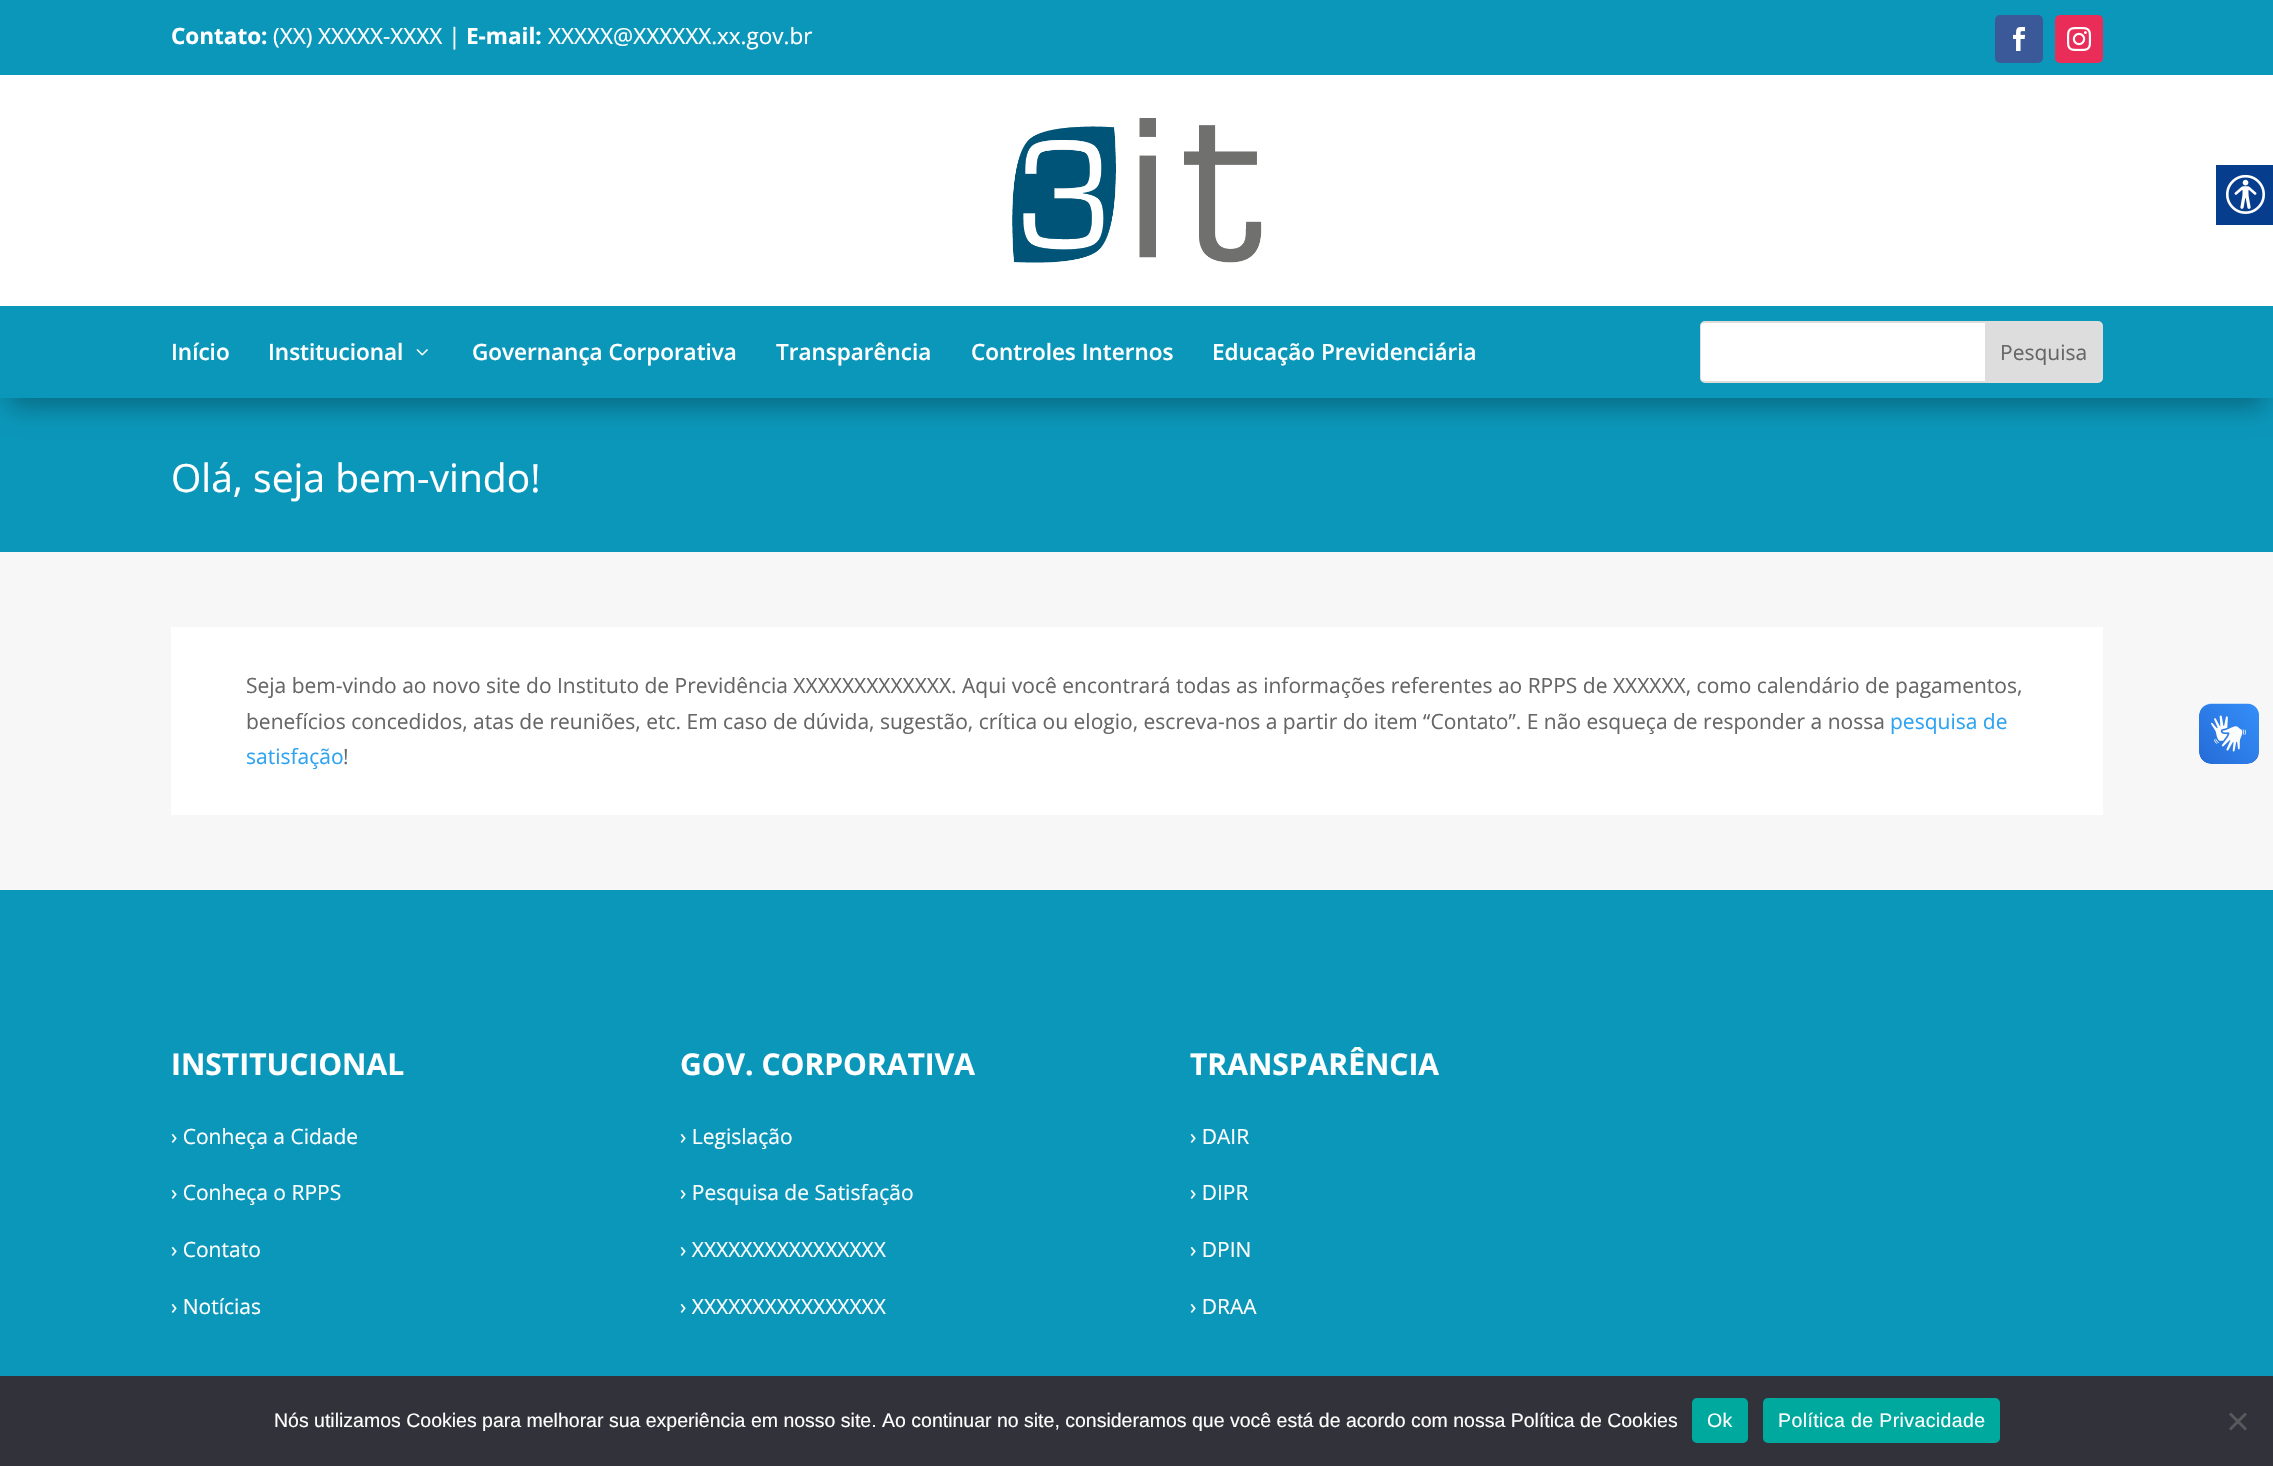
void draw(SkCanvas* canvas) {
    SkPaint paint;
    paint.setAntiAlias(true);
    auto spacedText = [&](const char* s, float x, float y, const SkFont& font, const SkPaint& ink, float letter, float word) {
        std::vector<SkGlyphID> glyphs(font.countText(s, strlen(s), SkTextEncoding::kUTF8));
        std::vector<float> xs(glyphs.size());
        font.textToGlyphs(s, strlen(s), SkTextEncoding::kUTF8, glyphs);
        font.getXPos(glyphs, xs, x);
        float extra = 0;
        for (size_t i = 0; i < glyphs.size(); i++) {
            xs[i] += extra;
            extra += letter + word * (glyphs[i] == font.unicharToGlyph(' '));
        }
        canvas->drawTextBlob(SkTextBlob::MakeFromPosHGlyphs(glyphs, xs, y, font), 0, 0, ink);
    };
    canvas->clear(0xFFFFFFFF);
    paint.setColor(0xFF0B97BA);
    canvas->drawRect(SkRect::MakeXYWH(0, 0, 2273, 75), paint);
    SkFont font1(fontMgr->matchFamilyStyle("Open Sans", SkFontStyle::Bold()), 22.5f);
    font1.setSubpixel(true);
    paint.setColor(0xFFFFFFFF);
    canvas->drawString("Contato:", 171, 44, font1, paint);
    SkFont font2(fontMgr->matchFamilyStyle("Open Sans", SkFontStyle::Normal()), 22.5f);
    font2.setSubpixel(true);
    canvas->drawString("(XX) XXXXX-XXXX |", 273, 44, font2, paint);
    canvas->drawString("E-mail:", 466, 44, font1, paint);
    canvas->drawString("XXXXX@XXXXXX.xx.gov.br", 548, 44, font2, paint);
    paint.setColor(0xFF3B5998);
    canvas->drawRoundRect(SkRect::MakeXYWH(1995, 15, 48, 48), 5, 5, paint);
    canvas->drawImageRect(SkImages::DeferredFromEncodedData(SkData::MakeFromFileName("img1.png")), SkRect::MakeXYWH(2013, 27, 13, 24), SkSamplingOptions());
    paint.setColor(0xFFEA2C59);
    canvas->drawRoundRect(SkRect::MakeXYWH(2055, 15, 48, 48), 5, 5, paint);
    canvas->drawImageRect(SkImages::DeferredFromEncodedData(SkData::MakeFromFileName("img2.png")), SkRect::MakeXYWH(2067, 27, 24, 24), SkSamplingOptions());
    canvas->drawImageRect(SkImages::DeferredFromEncodedData(SkData::MakeFromFileName("img3.png")), SkRect::MakeXYWH(1012, 118, 250, 145), SkSamplingOptions());
    paint.setColor(0xFF0B97BA);
    canvas->drawRect(SkRect::MakeXYWH(0, 398, 2273, 154), paint);
    paint.setColor(0x4D000000);
    paint.setMaskFilter(SkMaskFilter::MakeBlur(kNormal_SkBlurStyle, 13.5f));
    canvas->drawRect(SkRect::MakeXYWH(9, 333, 2256, 74), paint);
    paint.setMaskFilter(nullptr);
    paint.setColor(0xFF0B97BA);
    canvas->drawRect(SkRect::MakeXYWH(0, 306, 2273, 92), paint);
    SkFont font3(fontMgr->matchFamilyStyle("Open Sans", SkFontStyle(600, SkFontStyle::kNormal_Width, SkFontStyle::kUpright_Slant)), 22.5f);
    font3.setSubpixel(true);
    paint.setColor(0xFFFFFFFF);
    canvas->drawString("Início", 171, 360, font3, paint);
    canvas->drawString("Institucional", 268, 360, font3, paint);
    canvas->drawImageRect(SkImages::DeferredFromEncodedData(SkData::MakeFromFileName("img4.png")), SkRect::MakeXYWH(416, 349, 12, 7), SkSamplingOptions());
    canvas->drawString("Governança Corporativa", 472, 360, font3, paint);
    canvas->drawString("Transparência", 776, 360, font3, paint);
    canvas->drawString("Controles Internos", 971, 360, font3, paint);
    canvas->drawString("Educação Previdenciária", 1212, 360, font3, paint);
    paint.setStyle(SkPaint::kStroke_Style);
    paint.setStrokeWidth(2);
    paint.setColor(0xFFDDDDDD);
    canvas->drawRoundRect(SkRect::MakeXYWH(1701, 322, 401, 60), 4, 4, paint);
    paint.setStyle(SkPaint::kFill_Style);
    paint.setColor(0xFFFFFFFF);
    canvas->drawRoundRect(SkRect::MakeXYWH(1701, 323, 401, 58), 3, 3, paint);
    paint.setColor(0xFFDDDDDD);
    canvas->drawPath(SkPathBuilder().moveTo(1985, 323).lineTo(2099, 323).cubicTo(2100.5f, 323, 2102, 324.5f, 2102, 326).lineTo(2102, 378).cubicTo(2102, 379.5f, 2100.5f, 381, 2099, 381).lineTo(1985, 381).close().detach(), paint);
    SkFont font4(fontMgr->matchFamilyStyle("Open Sans", SkFontStyle::Normal()), 21);
    font4.setSubpixel(true);
    paint.setColor(0xFF666666);
    canvas->drawString("Pesquisa", 2000, 360, font4, paint);
    SkFont font5(fontMgr->matchFamilyStyle("Open Sans", SkFontStyle::Normal()), 39);
    font5.setSubpixel(true);
    paint.setColor(0xFFFFFFFF);
    canvas->drawString("Olá, seja bem-vindo!", 171, 492, font5, paint);
    paint.setColor(0xFFF7F7F7);
    canvas->drawRect(SkRect::MakeXYWH(0, 552, 2273, 338), paint);
    paint.setColor(0xFFFFFFFF);
    canvas->drawRect(SkRect::MakeXYWH(171, 627, 1932, 188), paint);
    paint.setColor(0xFF666666);
    canvas->drawString("Seja bem-vindo ao novo site do Instituto de Previdência XXXXXXXXXXXXX. Aqui você encontrará todas as informações referentes ao RPPS de XXXXXX, como calendário de pagamentos,", 246, 693, font4, paint);
    canvas->drawString("benefícios concedidos, atas de reuniões, etc. Em caso de dúvida, sugestão, crítica ou elogio, escreva-nos a partir do item “Contato”. E não esqueça de responder a nossa", 246, 729, font4, paint);
    paint.setColor(0xFF2EA3F2);
    canvas->drawString("pesquisa de", 1890, 729, font4, paint);
    canvas->drawString("satisfação", 246, 764, font4, paint);
    paint.setColor(0xFF666666);
    canvas->drawString("!", 343, 764, font4, paint);
    paint.setColor(0xFF0B97BA);
    canvas->drawRect(SkRect::MakeXYWH(0, 890, 2273, 486), paint);
    SkFont font6(fontMgr->matchFamilyStyle("Open Sans", SkFontStyle::Bold()), 30);
    font6.setSubpixel(true);
    paint.setColor(0xFFFFFFFF);
    canvas->drawString("INSTITUCIONAL", 171, 1075, font6, paint);
    canvas->drawString("› Conheça a Cidade", 171, 1144, font4, paint);
    canvas->drawString("› Conheça o RPPS", 171, 1200, font4, paint);
    canvas->drawString("› Contato", 171, 1257, font4, paint);
    canvas->drawString("› Notícias", 171, 1314, font4, paint);
    canvas->drawString("GOV. CORPORATIVA", 680, 1075, font6, paint);
    canvas->drawString("› Legislação", 680, 1144, font4, paint);
    canvas->drawString("› Pesquisa de Satisfação", 680, 1200, font4, paint);
    canvas->drawString("› XXXXXXXXXXXXXXXX", 680, 1257, font4, paint);
    canvas->drawString("› XXXXXXXXXXXXXXXX", 680, 1314, font4, paint);
    canvas->drawString("TRANSPARÊNCIA", 1190, 1075, font6, paint);
    canvas->drawString("› DAIR", 1190, 1144, font4, paint);
    canvas->drawString("› DIPR", 1190, 1200, font4, paint);
    canvas->drawString("› DPIN", 1190, 1257, font4, paint);
    canvas->drawString("› DRAA", 1190, 1314, font4, paint);
    paint.setColor(0xFF063D8D);
    canvas->drawRect(SkRect::MakeXYWH(2216, 165, 57, 60), paint);
    canvas->drawImageRect(SkImages::DeferredFromEncodedData(SkData::MakeFromFileName("img5.png")), SkRect::MakeXYWH(2226, 174, 39, 40), SkSamplingOptions());
    canvas->drawImageRect(SkImages::DeferredFromEncodedData(SkData::MakeFromFileName("img6.png")), SkRect::MakeXYWH(2199, 703, 60, 61), SkSamplingOptions());
    canvas->drawImageRect(SkImages::DeferredFromEncodedData(SkData::MakeFromFileName("img7.png")), SkRect::MakeXYWH(2199, 704, 60, 60), SkSamplingOptions());
    paint.setColor(0xFF32323A);
    canvas->drawRect(SkRect::MakeXYWH(0, 1376, 2273, 90), paint);
    SkFont font7(fontMgr->matchFamilyStyle("Liberation Sans", SkFontStyle::Normal()), 19.5f);
    font7.setSubpixel(true);
    paint.setColor(0xFFFFFFFF);
    canvas->drawString("Nós utilizamos Cookies para melhorar sua experiência em nosso site. Ao continuar no site, consideramos que você está de acordo com nossa Política de Cookies", 274, 1427, font7, paint);
    paint.setColor(0xFF00A99D);
    canvas->drawRoundRect(SkRect::MakeXYWH(1692, 1398, 56, 45), 5, 5, paint);
    paint.setColor(0xFFFFFFFF);
    spacedText("Ok", 1707, 1427, font7, paint, 0.4f, 0);
    paint.setColor(0xFF00A99D);
    canvas->drawRoundRect(SkRect::MakeXYWH(1763, 1398, 237, 45), 5, 5, paint);
    paint.setColor(0xFFFFFFFF);
    spacedText("Política de Privacidade", 1778, 1427, font7, paint, 0.4f, 0);
    paint.setColor(0xFF59595D);
    canvas->drawPath(SkPathBuilder().moveTo(2245, 1412.5f).lineTo(2247, 1414.5f).lineTo(2231, 1430.5f).lineTo(2229, 1428.5f).close().detach(), paint);
    canvas->drawPath(SkPathBuilder().moveTo(2229, 1414.5f).lineTo(2231, 1412.5f).lineTo(2247, 1428.5f).lineTo(2245, 1430.5f).close().detach(), paint);
}
